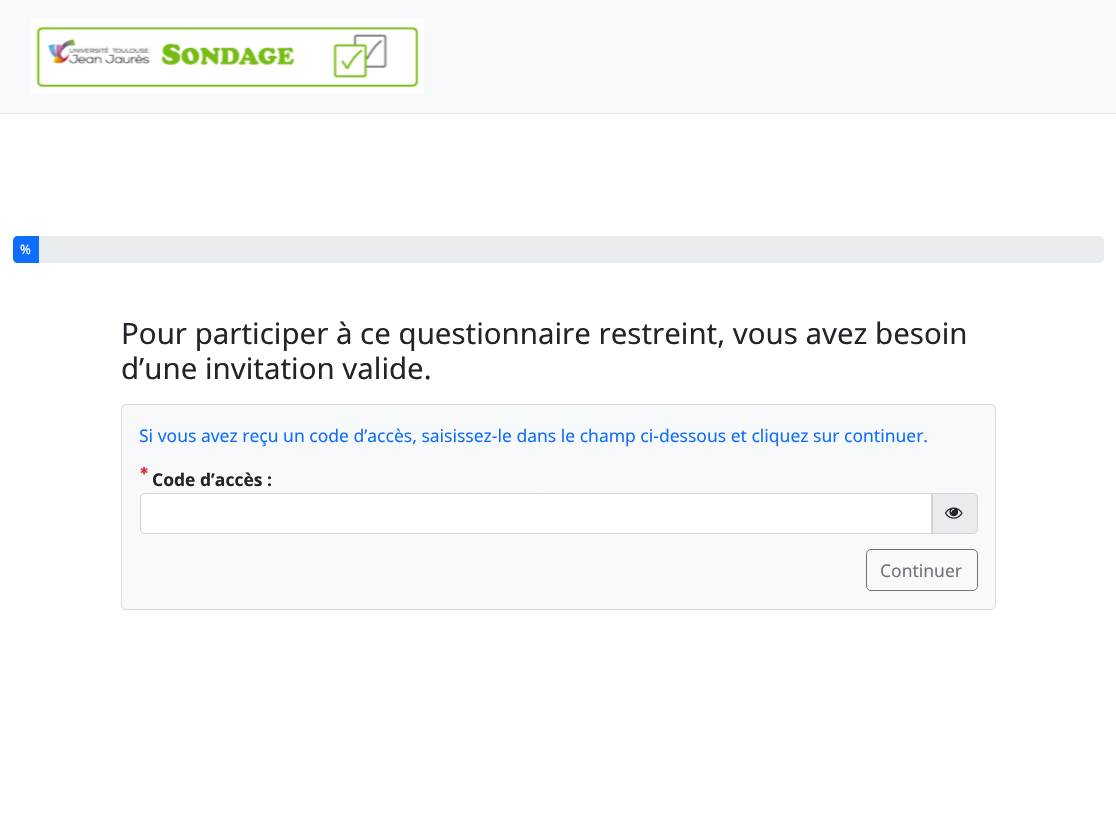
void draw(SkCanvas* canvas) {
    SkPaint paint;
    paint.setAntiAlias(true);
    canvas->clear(0xFFFFFFFF);
    paint.setColor(0xFFF8F9FA);
    canvas->drawRect(SkRect::MakeXYWH(0, 0, 1116, 113), paint);
    paint.setColor(0xFFDEE2E6);
    canvas->drawRect(SkRect::MakeXYWH(0, 113, 1116, 1), paint);
    canvas->drawImageRect(SkImages::DeferredFromEncodedData(SkData::MakeFromFileName("img1.png")), SkRect::MakeXYWH(31, 19, 393, 75), SkSamplingOptions());
    paint.setColor(0xFFE9ECEF);
    canvas->drawRoundRect(SkRect::MakeXYWH(13, 236, 1091, 27), 5, 5, paint);
    paint.setColor(0xFF0D6EFD);
    canvas->drawPath(SkPathBuilder().moveTo(18, 236).lineTo(39, 236).lineTo(39, 263).lineTo(18, 263).cubicTo(15, 263, 13, 261, 13, 258).lineTo(13, 241).cubicTo(13, 238, 15, 236, 18, 236).close().detach(), paint);
    SkFont font1(fontMgr->matchFamilyStyle("Noto Sans", SkFontStyle::Normal()), 13);
    font1.setSubpixel(true);
    paint.setColor(0xFFFFFFFF);
    canvas->drawString("%", 20, 254, font1, paint);
    SkFont font2(fontMgr->matchFamilyStyle("Noto Sans", SkFontStyle::Normal()), 29.45f);
    font2.setSubpixel(true);
    paint.setColor(0xFF212529);
    canvas->drawString("Pour participer à ce questionnaire restreint, vous avez besoin", 121, 344, font2, paint);
    canvas->drawString("d’une invitation valide.", 121, 379, font2, paint);
    paint.setColor(0xFFF8F9FA);
    canvas->drawRoundRect(SkRect::MakeXYWH(121, 404, 875, 206), 5, 5, paint);
    paint.setStyle(SkPaint::kStroke_Style);
    paint.setStrokeWidth(1);
    paint.setColor(0x1F000000);
    canvas->drawRoundRect(SkRect::MakeXYWH(121.5f, 404.5f, 874, 205), 4.5f, 4.5f, paint);
    SkFont font3(fontMgr->matchFamilyStyle("Noto Sans", SkFontStyle::Normal()), 17.5f);
    font3.setSubpixel(true);
    paint.setStyle(SkPaint::kFill_Style);
    paint.setColor(0xFF0D6EFD);
    canvas->drawString("Si vous avez reçu un code d’accès, saisissez-le dans le champ ci-dessous et cliquez sur continuer.", 139, 442, font3, paint);
    canvas->drawImageRect(SkImages::DeferredFromEncodedData(SkData::MakeFromFileName("img2.png")), SkRect::MakeXYWH(140, 466, 8, 9), SkSamplingOptions());
    SkFont font4(fontMgr->matchFamilyStyle("Noto Sans", SkFontStyle::Bold()), 17.5f);
    font4.setSubpixel(true);
    paint.setColor(0xFF212529);
    canvas->drawString("Code d’accès :", 152, 486, font4, paint);
    paint.setColor(0xFFFFFFFF);
    canvas->drawPath(SkPathBuilder().moveTo(144, 494).lineTo(931, 494).lineTo(931, 533).lineTo(144, 533).cubicTo(142.5f, 533, 141, 531.5f, 141, 530).lineTo(141, 497).cubicTo(141, 495.5f, 142.5f, 494, 144, 494).close().detach(), paint);
    paint.setColor(0xFFE9ECEF);
    canvas->drawPath(SkPathBuilder().moveTo(931.5f, 493.5f).lineTo(973, 493.5f).cubicTo(975.5f, 493.5f, 977.5f, 495.5f, 977.5f, 498).lineTo(977.5f, 529).cubicTo(977.5f, 531.5f, 975.5f, 533.5f, 973, 533.5f).lineTo(931.5f, 533.5f).close().detach(), paint);
    paint.setStyle(SkPaint::kStroke_Style);
    paint.setColor(0xFFCED4DA);
    canvas->drawPath(SkPathBuilder().moveTo(931.5f, 493.5f).lineTo(973, 493.5f).cubicTo(975.5f, 493.5f, 977.5f, 495.5f, 977.5f, 498).lineTo(977.5f, 529).cubicTo(977.5f, 531.5f, 975.5f, 533.5f, 973, 533.5f).lineTo(931.5f, 533.5f).close().detach(), paint);
    canvas->drawPath(SkPathBuilder().moveTo(145, 493.5f).lineTo(932.5f, 493.5f).lineTo(932.5f, 533.5f).lineTo(145, 533.5f).cubicTo(142.5f, 533.5f, 140.5f, 531.5f, 140.5f, 529).lineTo(140.5f, 498).cubicTo(140.5f, 495.5f, 142.5f, 493.5f, 145, 493.5f).close().detach(), paint);
    canvas->drawImageRect(SkImages::DeferredFromEncodedData(SkData::MakeFromFileName("img3.png")), SkRect::MakeXYWH(945, 507, 18, 12), SkSamplingOptions());
    paint.setColor(0xFF6C757D);
    canvas->drawRoundRect(SkRect::MakeXYWH(866.5f, 549.5f, 111, 41), 4.5f, 4.5f, paint);
    paint.setStyle(SkPaint::kFill_Style);
    canvas->drawString("Continuer", 880, 577, font3, paint);
}
